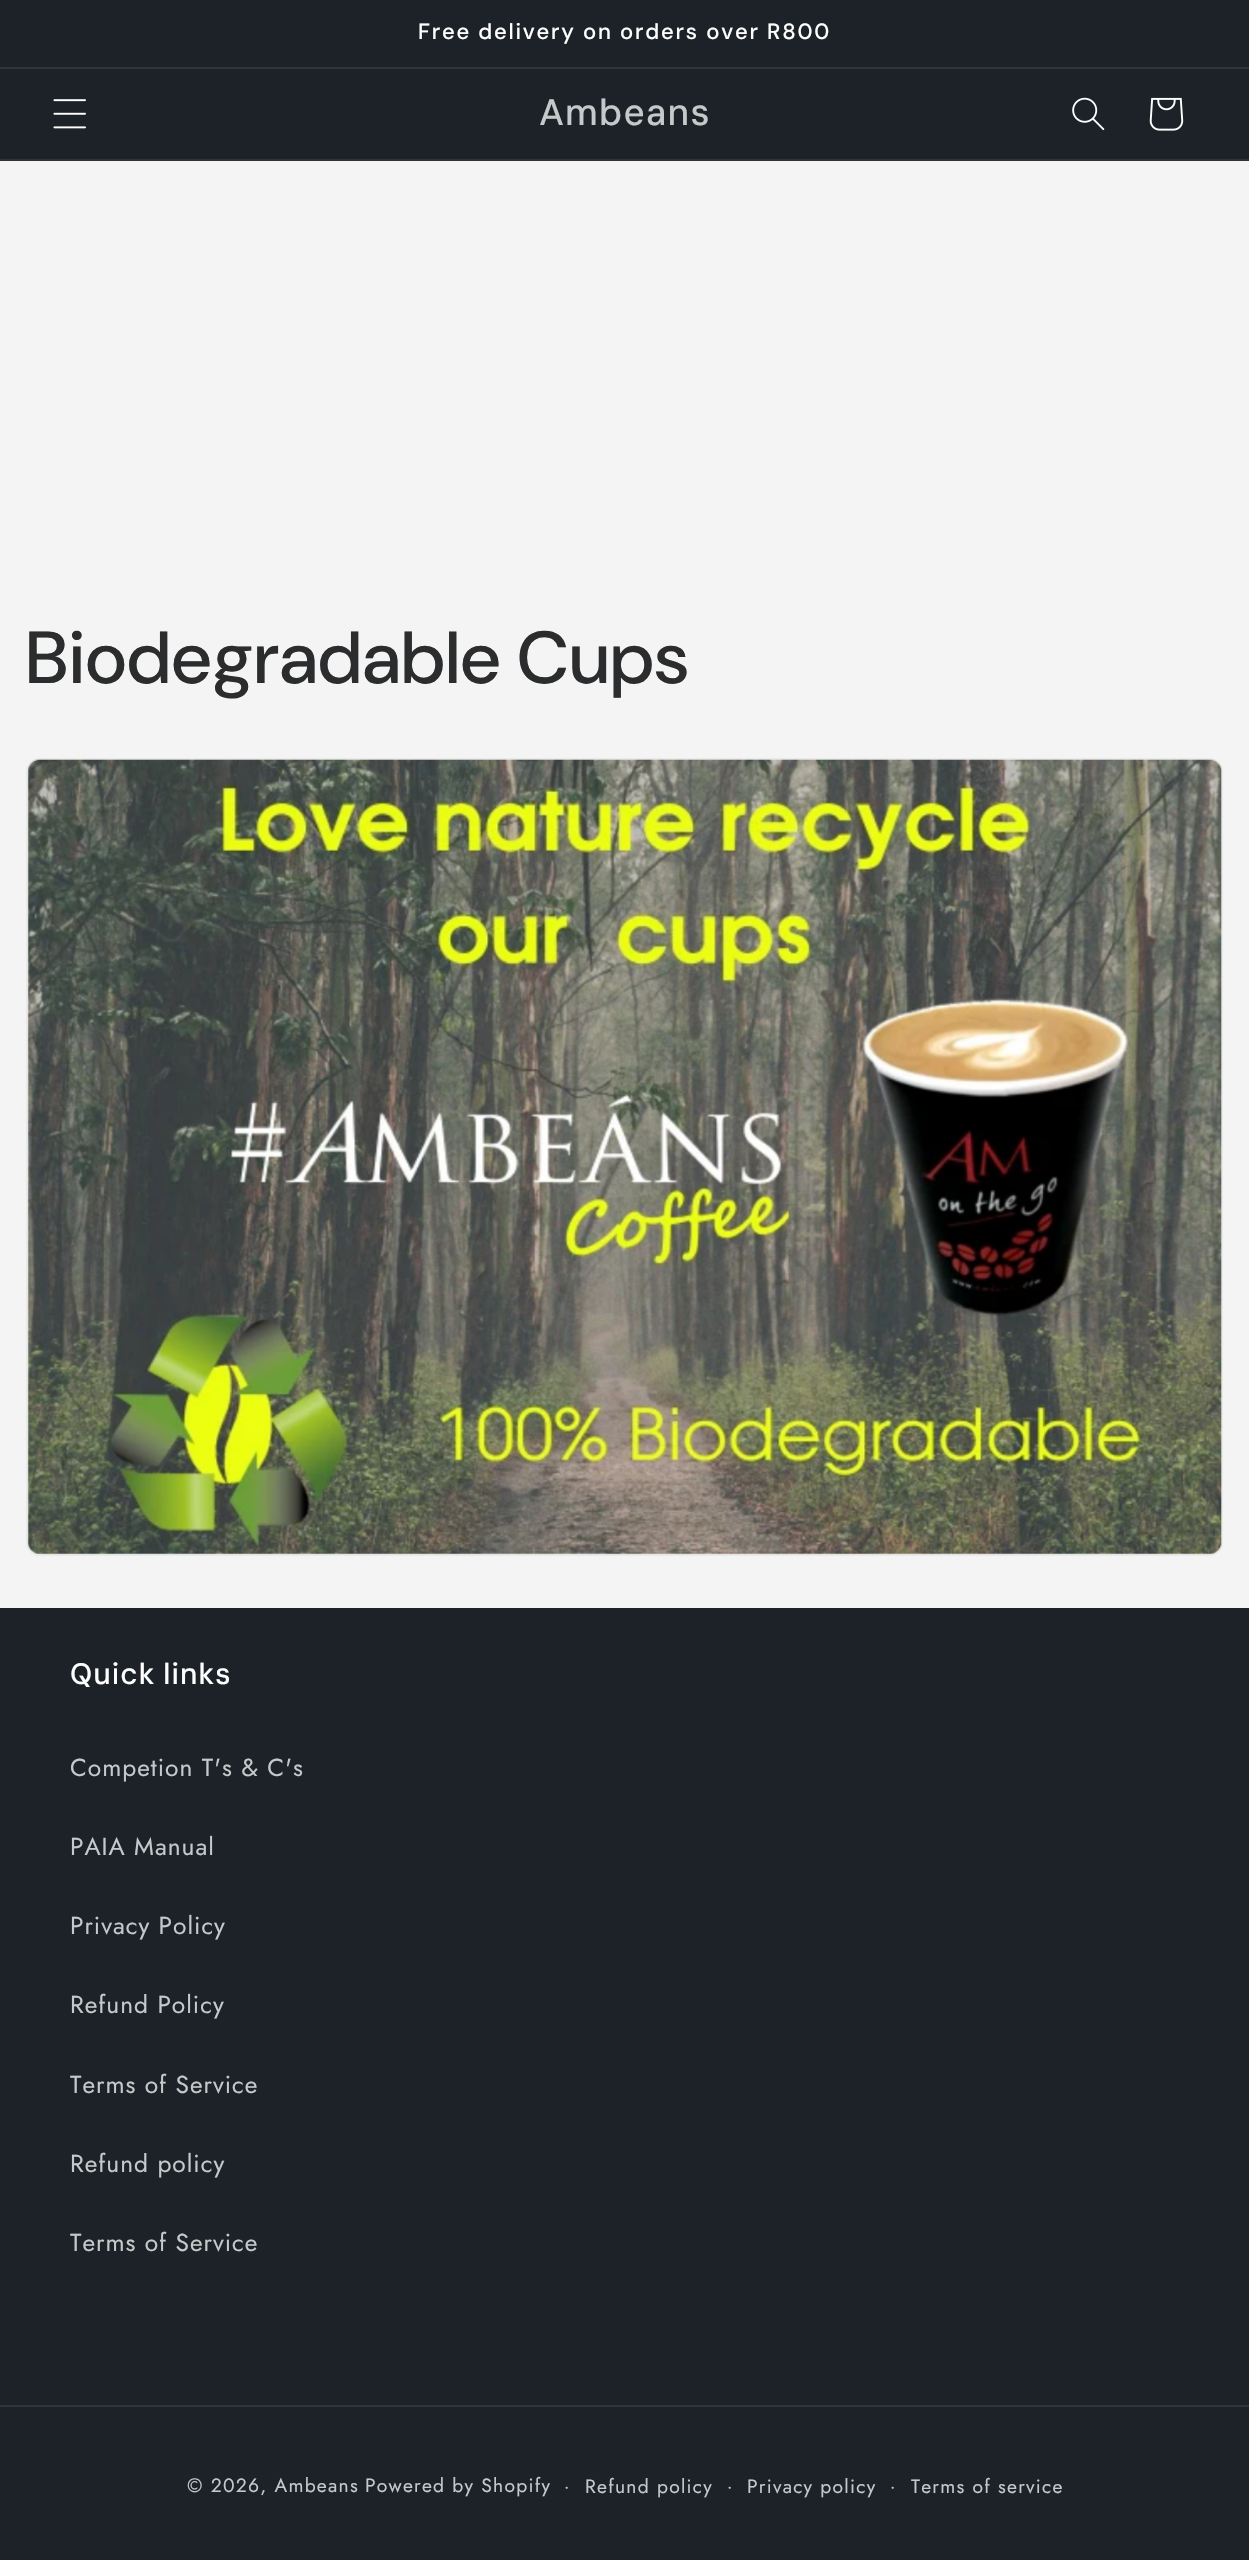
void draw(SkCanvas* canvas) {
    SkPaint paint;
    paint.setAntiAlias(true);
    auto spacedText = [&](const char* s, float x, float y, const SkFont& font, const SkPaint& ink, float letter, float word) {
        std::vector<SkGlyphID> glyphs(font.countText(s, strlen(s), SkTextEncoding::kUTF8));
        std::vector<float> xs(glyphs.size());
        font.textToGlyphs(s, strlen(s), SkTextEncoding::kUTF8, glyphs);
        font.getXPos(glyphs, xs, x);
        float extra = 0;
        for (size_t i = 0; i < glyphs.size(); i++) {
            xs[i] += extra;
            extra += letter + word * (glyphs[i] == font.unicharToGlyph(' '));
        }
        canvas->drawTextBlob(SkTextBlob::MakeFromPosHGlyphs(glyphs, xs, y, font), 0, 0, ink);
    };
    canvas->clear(0xFFF4F4F4);
    paint.setColor(0xFF1C2228);
    canvas->drawRect(SkRect::MakeXYWH(0, 0, 1249, 67), paint);
    paint.setColor(0xFF2E3439);
    canvas->drawRect(SkRect::MakeXYWH(0, 67, 1249, 2), paint);
    SkFont font1(fontMgr->matchFamilyStyle("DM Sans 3", SkFontStyle(500, SkFontStyle::kNormal_Width, SkFontStyle::kUpright_Slant)), 22);
    font1.setSubpixel(true);
    paint.setColor(0xFFFFFFFF);
    spacedText("Free delivery on orders over R800", 418, 39, font1, paint, 1.75f, 0);
    paint.setColor(0xFF1C2228);
    canvas->drawRect(SkRect::MakeXYWH(0, 69, 1249, 90), paint);
    paint.setColor(0xFF2E3439);
    canvas->drawRect(SkRect::MakeXYWH(0, 159, 1249, 2), paint);
    canvas->drawImageRect(SkImages::DeferredFromEncodedData(SkData::MakeFromFileName("img1.png")), SkRect::MakeXYWH(53, 99, 33, 30), SkSamplingOptions());
    SkFont font2(fontMgr->matchFamilyStyle("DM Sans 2", SkFontStyle(500, SkFontStyle::kNormal_Width, SkFontStyle::kUpright_Slant)), 36.75f);
    font2.setSubpixel(true);
    paint.setColor(0xFFC6C8C9);
    spacedText("Ambeans", 539, 125, font2, paint, 1.1f, 0);
    canvas->drawImageRect(SkImages::DeferredFromEncodedData(SkData::MakeFromFileName("img2.png")), SkRect::MakeXYWH(1072, 97, 33, 34), SkSamplingOptions());
    canvas->drawImageRect(SkImages::DeferredFromEncodedData(SkData::MakeFromFileName("img3.png")), SkRect::MakeXYWH(1149, 97, 35, 34), SkSamplingOptions());
    SkFont font3(fontMgr->matchFamilyStyle("DM Sans", SkFontStyle(500, SkFontStyle::kNormal_Width, SkFontStyle::kUpright_Slant)), 73.5f);
    font3.setSubpixel(true);
    paint.setColor(0xFF2B2C2D);
    spacedText("Biodegradable Cups", 26, 683, font3, paint, 1.1f, 0);
    paint.setStyle(SkPaint::kStroke_Style);
    paint.setStrokeWidth(2);
    paint.setColor(0xFFEAEAEA);
    canvas->drawRoundRect(SkRect::MakeXYWH(27, 759, 1195, 796), 13, 13, paint);
    canvas->drawImageRect(SkImages::DeferredFromEncodedData(SkData::MakeFromFileName("img4.png")), SkRect::MakeXYWH(27, 759, 1195, 796), SkSamplingOptions());
    paint.setStyle(SkPaint::kFill_Style);
    paint.setColor(0xFF1C2228);
    canvas->drawRect(SkRect::MakeXYWH(0, 1608, 1249, 952), paint);
    SkFont font4(fontMgr->matchFamilyStyle("DM Sans 2", SkFontStyle(500, SkFontStyle::kNormal_Width, SkFontStyle::kUpright_Slant)), 29.5f);
    font4.setSubpixel(true);
    paint.setColor(0xFFFFFFFF);
    spacedText("Quick links", 70, 1684, font4, paint, 1.1f, -1);
    SkFont font5(fontMgr->matchFamilyStyle("Jost", SkFontStyle::Normal()), 24.5f);
    font5.setSubpixel(true);
    paint.setColor(0xFFC6C8C9);
    spacedText("Competion T's & C's", 70, 1776, font5, paint, 1, 0);
    spacedText("PAIA Manual", 70, 1855, font5, paint, 1, 0);
    spacedText("Privacy Policy", 70, 1934, font5, paint, 1, 0);
    spacedText("Refund Policy", 70, 2013, font5, paint, 1, 0);
    spacedText("Terms of Service", 70, 2093, font5, paint, 1, 0);
    spacedText("Refund policy", 70, 2172, font5, paint, 1, 0);
    spacedText("Terms of Service", 70, 2251, font5, paint, 1, 0);
    paint.setColor(0xFF2E3439);
    canvas->drawRect(SkRect::MakeXYWH(0, 2405, 1249, 2), paint);
    SkFont font6(fontMgr->matchFamilyStyle("Jost", SkFontStyle::Normal()), 19.25f);
    font6.setSubpixel(true);
    paint.setColor(0xFFC6C8C9);
    spacedText("© 2026, Ambeans", 187, 2492, font6, paint, 1.25f, 0);
    spacedText("Powered by Shopify", 365, 2492, font6, paint, 1.25f, 0);
    SkFont font7(fontMgr->matchFamilyStyle("Jost", SkFontStyle::Normal()), 18);
    font7.setSubpixel(true);
    spacedText("·", 564, 2492, font7, paint, 1.25f, 0);
    spacedText("Refund policy", 585, 2493, font6, paint, 1.25f, 0);
    spacedText("·", 727, 2492, font7, paint, 1.25f, 0);
    spacedText("Privacy policy", 747, 2493, font6, paint, 1.25f, 0);
    spacedText("·", 890, 2492, font7, paint, 1.25f, 0);
    spacedText("Terms of service", 911, 2493, font6, paint, 1.25f, 0);
}
